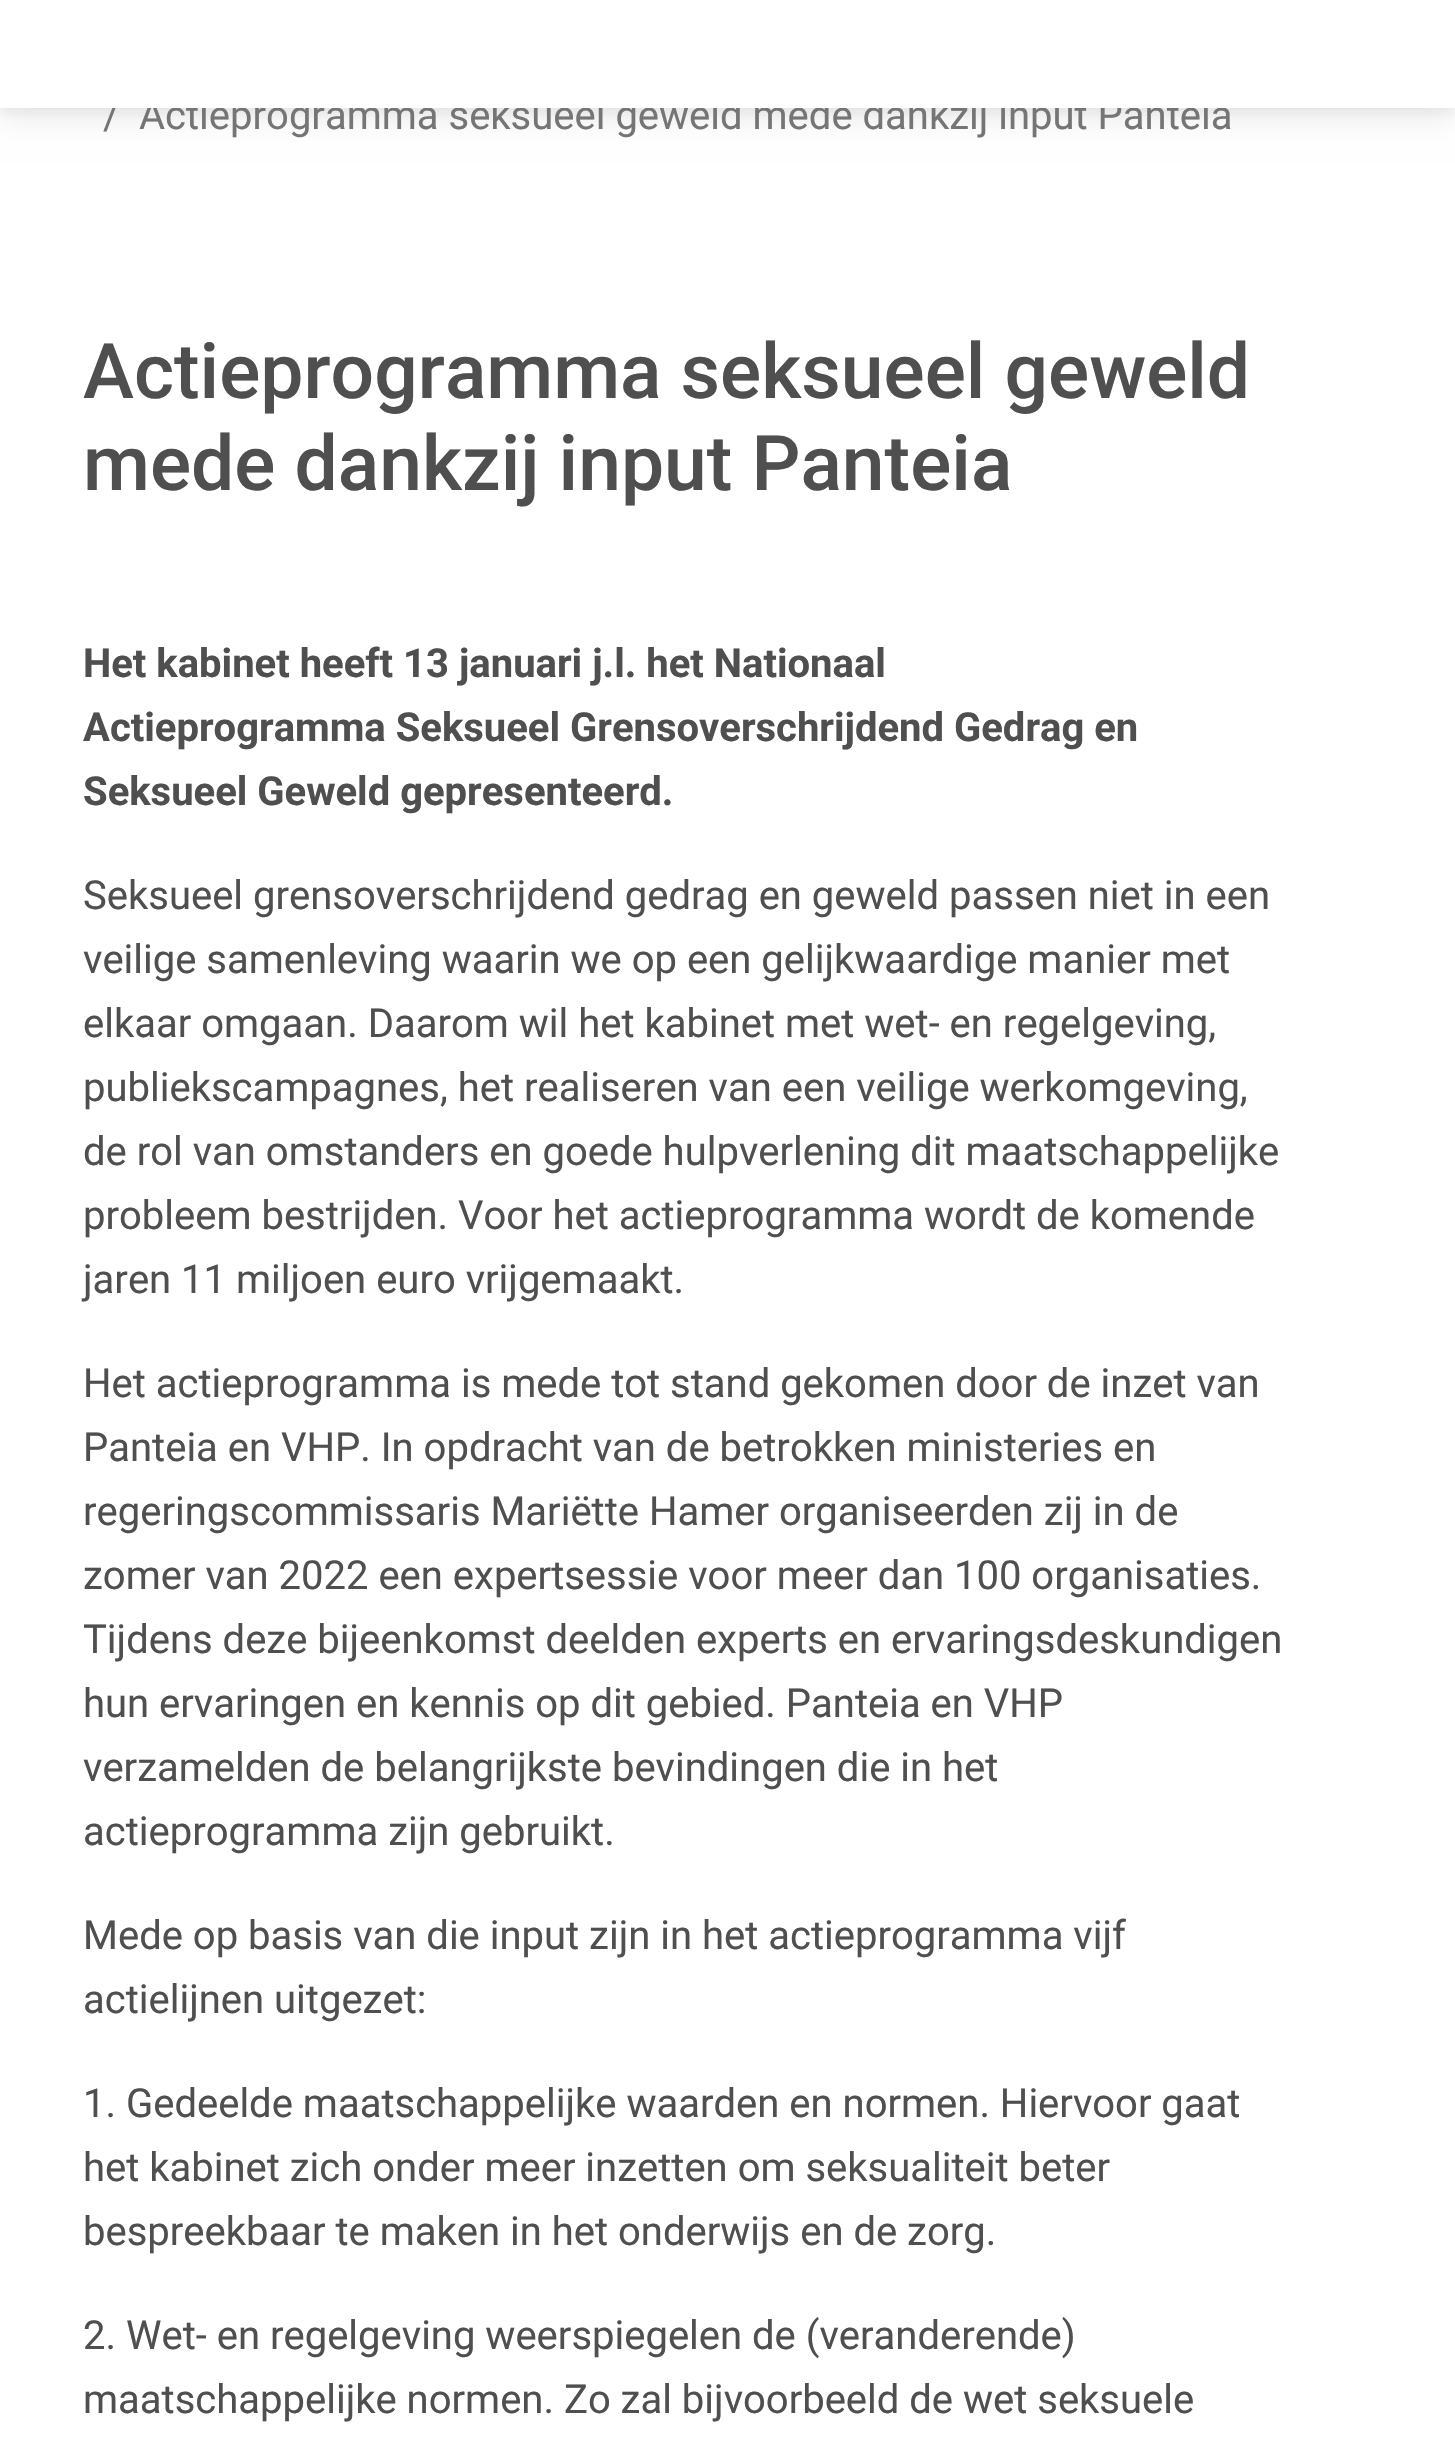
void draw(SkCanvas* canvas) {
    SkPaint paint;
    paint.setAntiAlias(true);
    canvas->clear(0xFFFFFFFF);
    paint.setColor(0x0D000000);
    paint.setMaskFilter(SkMaskFilter::MakeBlur(kNormal_SkBlurStyle, 5));
    canvas->drawRect(SkRect::MakeXYWH(0, 5, 1455, 108), paint);
    paint.setMaskFilter(nullptr);
    paint.setColor(0x12000000);
    paint.setMaskFilter(SkMaskFilter::MakeBlur(kNormal_SkBlurStyle, 15));
    canvas->drawRect(SkRect::MakeXYWH(0, 10, 1455, 108), paint);
    paint.setMaskFilter(nullptr);
    SkFont font1(fontMgr->matchFamilyStyle("Roboto", SkFontStyle::Normal()), 40);
    font1.setSubpixel(true);
    paint.setColor(0xFF757575);
    canvas->drawString("/", 103, 129, font1, paint);
    canvas->drawString("Actieprogramma seksueel geweld mede dankzij input Panteia", 139, 129, font1, paint);
    paint.setColor(0xFFFFFFFF);
    canvas->drawRect(SkRect::MakeXYWH(0, 0, 1455, 108), paint);
    SkFont font2(fontMgr->matchFamilyStyle("Roboto", SkFontStyle(500, SkFontStyle::kNormal_Width, SkFontStyle::kUpright_Slant)), 76.8f);
    font2.setSubpixel(true);
    paint.setColor(0xFF4F4F4F);
    canvas->drawString("Actieprogramma seksueel geweld", 83, 398, font2, paint);
    canvas->drawString("mede dankzij input Panteia", 83, 490, font2, paint);
    SkFont font3(fontMgr->matchFamilyStyle("Roboto", SkFontStyle::Bold()), 40);
    font3.setSubpixel(true);
    canvas->drawString("Het kabinet heeft 13 januari j.l. het Nationaal", 83, 677, font3, paint);
    canvas->drawString("Actieprogramma Seksueel Grensoverschrijdend Gedrag en", 83, 741, font3, paint);
    canvas->drawString("Seksueel Geweld gepresenteerd.", 83, 805, font3, paint);
    canvas->drawString("Seksueel grensoverschrijdend gedrag en geweld passen niet in een", 83, 909, font1, paint);
    canvas->drawString("veilige samenleving waarin we op een gelijkwaardige manier met", 83, 973, font1, paint);
    canvas->drawString("elkaar omgaan. Daarom wil het kabinet met wet- en regelgeving,", 83, 1037, font1, paint);
    canvas->drawString("publiekscampagnes, het realiseren van een veilige werkomgeving,", 83, 1101, font1, paint);
    canvas->drawString("de rol van omstanders en goede hulpverlening dit maatschappelijke", 83, 1165, font1, paint);
    canvas->drawString("probleem bestrijden. Voor het actieprogramma wordt de komende", 83, 1229, font1, paint);
    canvas->drawString("jaren 11 miljoen euro vrijgemaakt.", 83, 1293, font1, paint);
    canvas->drawString("Het actieprogramma is mede tot stand gekomen door de inzet van", 83, 1397, font1, paint);
    canvas->drawString("Panteia en VHP. In opdracht van de betrokken ministeries en", 83, 1461, font1, paint);
    canvas->drawString("regeringscommissaris Mariëtte Hamer organiseerden zij in de", 83, 1525, font1, paint);
    canvas->drawString("zomer van 2022 een expertsessie voor meer dan 100 organisaties.", 83, 1589, font1, paint);
    canvas->drawString("Tijdens deze bijeenkomst deelden experts en ervaringsdeskundigen", 83, 1653, font1, paint);
    canvas->drawString("hun ervaringen en kennis op dit gebied. Panteia en VHP", 83, 1717, font1, paint);
    canvas->drawString("verzamelden de belangrijkste bevindingen die in het", 83, 1781, font1, paint);
    canvas->drawString("actieprogramma zijn gebruikt.", 83, 1845, font1, paint);
    canvas->drawString("Mede op basis van die input zijn in het actieprogramma vijf", 83, 1949, font1, paint);
    canvas->drawString("actielijnen uitgezet:", 83, 2013, font1, paint);
    canvas->drawString("1. Gedeelde maatschappelijke waarden en normen. Hiervoor gaat", 83, 2117, font1, paint);
    canvas->drawString("het kabinet zich onder meer inzetten om seksualiteit beter", 83, 2181, font1, paint);
    canvas->drawString("bespreekbaar te maken in het onderwijs en de zorg.", 83, 2245, font1, paint);
    canvas->drawString("2. Wet- en regelgeving weerspiegelen de (veranderende)", 83, 2349, font1, paint);
    canvas->drawString("maatschappelijke normen. Zo zal bijvoorbeeld de wet seksuele", 83, 2413, font1, paint);
}
